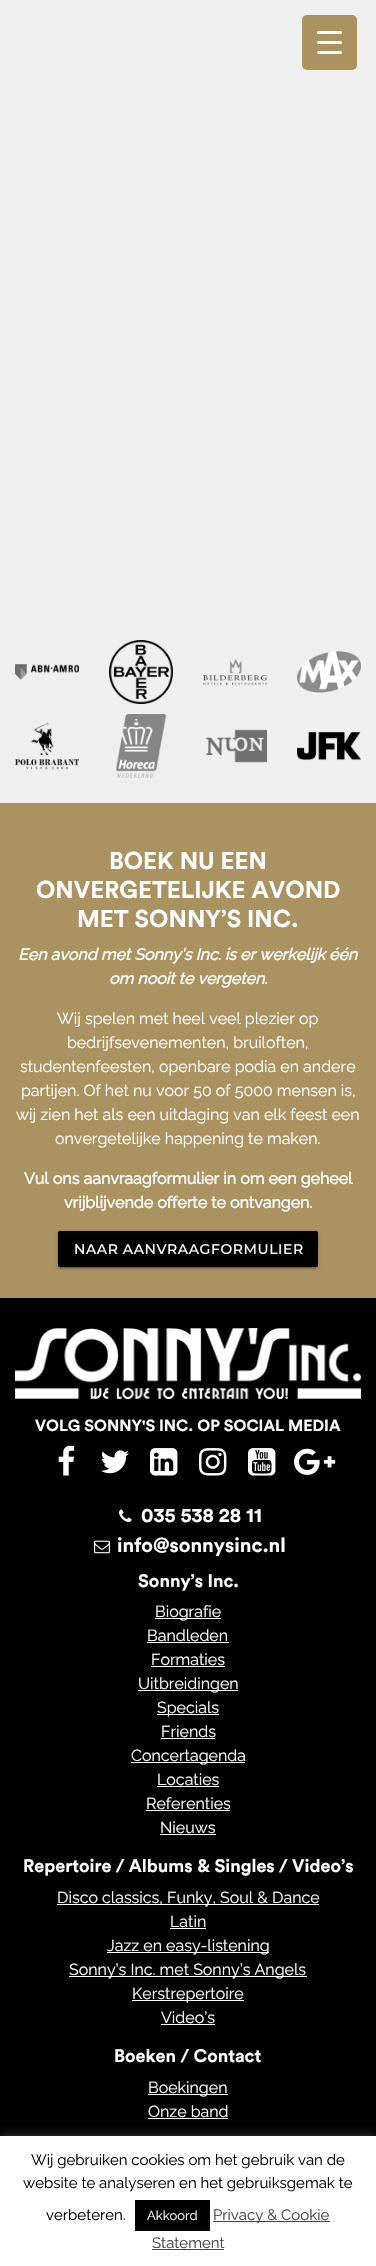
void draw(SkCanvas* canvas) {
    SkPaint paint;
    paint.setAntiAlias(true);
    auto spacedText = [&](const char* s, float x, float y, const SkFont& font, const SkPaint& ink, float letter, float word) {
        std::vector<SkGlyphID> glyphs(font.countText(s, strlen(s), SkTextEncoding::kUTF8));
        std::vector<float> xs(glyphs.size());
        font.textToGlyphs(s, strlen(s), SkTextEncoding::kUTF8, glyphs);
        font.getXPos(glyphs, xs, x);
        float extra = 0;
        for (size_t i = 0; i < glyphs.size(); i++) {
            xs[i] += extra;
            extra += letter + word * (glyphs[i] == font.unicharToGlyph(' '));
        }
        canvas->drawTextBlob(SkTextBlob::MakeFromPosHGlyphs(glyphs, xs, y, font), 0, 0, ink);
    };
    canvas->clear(0xFFEFEFEF);
    paint.setColor(0xFFAA9360);
    canvas->drawRoundRect(SkRect::MakeXYWH(302, 15, 55, 55), 5, 5, paint);
    paint.setColor(0xFFFFFFFF);
    canvas->drawRoundRect(SkRect::MakeXYWH(317, 41, 25, 3), 1.5f, 1.5f, paint);
    canvas->drawRoundRect(SkRect::MakeXYWH(317, 31, 25, 3), 1.5f, 1.5f, paint);
    canvas->drawRoundRect(SkRect::MakeXYWH(317, 51, 25, 3), 1.5f, 1.5f, paint);
    canvas->drawImageRect(SkImages::DeferredFromEncodedData(SkData::MakeFromFileName("img1.png")), SkRect::MakeXYWH(15, 664, 64, 16), SkSamplingOptions());
    canvas->drawImageRect(SkImages::DeferredFromEncodedData(SkData::MakeFromFileName("img2.png")), SkRect::MakeXYWH(109, 640, 64, 64), SkSamplingOptions());
    canvas->drawImageRect(SkImages::DeferredFromEncodedData(SkData::MakeFromFileName("img3.png")), SkRect::MakeXYWH(203, 659, 64, 27), SkSamplingOptions());
    canvas->drawImageRect(SkImages::DeferredFromEncodedData(SkData::MakeFromFileName("img4.png")), SkRect::MakeXYWH(297, 651, 64, 42), SkSamplingOptions());
    canvas->drawImageRect(SkImages::DeferredFromEncodedData(SkData::MakeFromFileName("img5.png")), SkRect::MakeXYWH(15, 722, 64, 48), SkSamplingOptions());
    canvas->drawImageRect(SkImages::DeferredFromEncodedData(SkData::MakeFromFileName("img6.png")), SkRect::MakeXYWH(116, 714, 51, 64), SkSamplingOptions());
    canvas->drawImageRect(SkImages::DeferredFromEncodedData(SkData::MakeFromFileName("img7.png")), SkRect::MakeXYWH(205, 729, 62, 34), SkSamplingOptions());
    canvas->drawImageRect(SkImages::DeferredFromEncodedData(SkData::MakeFromFileName("img8.png")), SkRect::MakeXYWH(297, 732, 64, 29), SkSamplingOptions());
    paint.setColor(0xFFAA9360);
    canvas->drawRect(SkRect::MakeXYWH(0, 803, 376, 495), paint);
    SkFont font1(fontMgr->matchFamilyStyle("Circular", SkFontStyle::Bold()), 24);
    font1.setSubpixel(true);
    paint.setColor(0xFFFFFFFF);
    canvas->drawString("BOEK NU EEN", 109, 869, font1, paint);
    canvas->drawString("ONVERGETELIJKE AVOND", 36, 898, font1, paint);
    canvas->drawString("MET SONNY’S INC.", 77, 927, font1, paint);
    SkFont font2(fontMgr->matchFamilyStyle("Raleway", SkFontStyle::BoldItalic()), 16);
    font2.setSubpixel(true);
    canvas->drawString("Een avond met Sonny’s Inc. is er werkelijk één", 18, 960, font2, paint);
    canvas->drawString("om nooit te vergeten.", 109, 984, font2, paint);
    SkFont font3(fontMgr->matchFamilyStyle("Raleway", SkFontStyle(100, SkFontStyle::kNormal_Width, SkFontStyle::kUpright_Slant)), 16);
    font3.setSubpixel(true);
    canvas->drawString("Wij spelen met heel veel plezier op", 57, 1024, font3, paint);
    canvas->drawString("bedrijfsevenementen, bruiloften,", 67, 1048, font3, paint);
    canvas->drawString("studentenfeesten, openbare podia en andere", 20, 1072, font3, paint);
    canvas->drawString("partijen. Of het nu voor 50 of 5000 mensen is,", 21, 1096, font3, paint);
    canvas->drawString("wij zien het als een uitdaging van elk feest een", 16, 1120, font3, paint);
    canvas->drawString("onvergetelijke happening te maken.", 55, 1144, font3, paint);
    SkFont font4(fontMgr->matchFamilyStyle("Raleway", SkFontStyle::Bold()), 16);
    font4.setSubpixel(true);
    canvas->drawString("Vul ons aanvraagformulier in om een geheel", 24, 1184, font4, paint);
    canvas->drawString("vrijblijvende offerte te ontvangen.", 64, 1208, font4, paint);
    paint.setColor(0x1F000000);
    paint.setMaskFilter(SkMaskFilter::MakeBlur(kNormal_SkBlurStyle, 2.5f));
    canvas->drawRoundRect(SkRect::MakeXYWH(58, 1232, 260, 36), 2, 2, paint);
    paint.setMaskFilter(nullptr);
    paint.setColor(0x24000000);
    paint.setMaskFilter(SkMaskFilter::MakeBlur(kNormal_SkBlurStyle, 1));
    canvas->drawRoundRect(SkRect::MakeXYWH(58, 1233, 260, 36), 2, 2, paint);
    paint.setMaskFilter(nullptr);
    paint.setColor(0x33000000);
    paint.setMaskFilter(SkMaskFilter::MakeBlur(kNormal_SkBlurStyle, 0.5f));
    canvas->drawRect(SkRect::MakeXYWH(60, 1236, 256, 32), paint);
    paint.setMaskFilter(nullptr);
    paint.setColor(0xFF010101);
    canvas->drawRoundRect(SkRect::MakeXYWH(58, 1231, 260, 36), 2, 2, paint);
    SkFont font5(fontMgr->matchFamilyStyle("Montserrat", SkFontStyle(500, SkFontStyle::kNormal_Width, SkFontStyle::kUpright_Slant)), 14);
    font5.setSubpixel(true);
    paint.setColor(0xFFFFFFFF);
    spacedText("NAAR AANVRAAGFORMULIER", 74, 1254, font5, paint, 0.6f, 0);
    paint.setColor(0xFF010101);
    canvas->drawRect(SkRect::MakeXYWH(0, 1298, 376, 838), paint);
    canvas->drawImageRect(SkImages::DeferredFromEncodedData(SkData::MakeFromFileName("img9.png")), SkRect::MakeXYWH(15, 1328, 346, 71), SkSamplingOptions());
    SkFont font6(fontMgr->matchFamilyStyle("Circular", SkFontStyle::Bold()), 16);
    font6.setSubpixel(true);
    paint.setColor(0xFFFFFFFF);
    canvas->drawString("VOLG SONNY'S INC. OP SOCIAL MEDIA", 35, 1431, font6, paint);
    canvas->drawImageRect(SkImages::DeferredFromEncodedData(SkData::MakeFromFileName("img10.png")), SkRect::MakeXYWH(58, 1445, 17, 31), SkSamplingOptions());
    canvas->drawImageRect(SkImages::DeferredFromEncodedData(SkData::MakeFromFileName("img11.png")), SkRect::MakeXYWH(101, 1450, 28, 24), SkSamplingOptions());
    canvas->drawImageRect(SkImages::DeferredFromEncodedData(SkData::MakeFromFileName("img12.png")), SkRect::MakeXYWH(150, 1448, 28, 28), SkSamplingOptions());
    canvas->drawImageRect(SkImages::DeferredFromEncodedData(SkData::MakeFromFileName("img13.png")), SkRect::MakeXYWH(199, 1448, 28, 28), SkSamplingOptions());
    canvas->drawImageRect(SkImages::DeferredFromEncodedData(SkData::MakeFromFileName("img14.png")), SkRect::MakeXYWH(248, 1448, 28, 28), SkSamplingOptions());
    canvas->drawImageRect(SkImages::DeferredFromEncodedData(SkData::MakeFromFileName("img15.png")), SkRect::MakeXYWH(294, 1448, 42, 27), SkSamplingOptions());
    canvas->drawImageRect(SkImages::DeferredFromEncodedData(SkData::MakeFromFileName("img16.png")), SkRect::MakeXYWH(119, 1509, 13, 14), SkSamplingOptions());
    SkFont font7(fontMgr->matchFamilyStyle("Circular", SkFontStyle::Bold()), 20);
    font7.setSubpixel(true);
    canvas->drawString("035 538 28 11", 141, 1522, font7, paint);
    canvas->drawImageRect(SkImages::DeferredFromEncodedData(SkData::MakeFromFileName("img17.png")), SkRect::MakeXYWH(94, 1540, 16, 14), SkSamplingOptions());
    canvas->drawString("info@sonnysinc.nl", 117, 1552, font7, paint);
    SkFont font8(fontMgr->matchFamilyStyle("Circular", SkFontStyle::Bold()), 18);
    font8.setSubpixel(true);
    canvas->drawString("Sonny’s Inc.", 138, 1587, font8, paint);
    canvas->drawRect(SkRect::MakeXYWH(155, 1618, 66, 1), paint);
    canvas->drawString("Biografie", 155, 1617, font3, paint);
    canvas->drawString("Bandleden", 147, 1641, font3, paint);
    canvas->drawRect(SkRect::MakeXYWH(147, 1642, 82, 1), paint);
    canvas->drawString("Formaties", 151, 1665, font3, paint);
    canvas->drawRect(SkRect::MakeXYWH(151, 1666, 74, 1), paint);
    canvas->drawRect(SkRect::MakeXYWH(138, 1690, 100, 1), paint);
    canvas->drawString("Uitbreidingen", 138, 1689, font3, paint);
    canvas->drawRect(SkRect::MakeXYWH(157, 1714, 62, 1), paint);
    canvas->drawString("Specials", 157, 1713, font3, paint);
    canvas->drawString("Friends", 161, 1737, font3, paint);
    canvas->drawRect(SkRect::MakeXYWH(161, 1738, 54, 1), paint);
    canvas->drawRect(SkRect::MakeXYWH(131, 1762, 114, 1), paint);
    canvas->drawString("Concertagenda", 131, 1761, font3, paint);
    canvas->drawString("Locaties", 157, 1785, font3, paint);
    canvas->drawRect(SkRect::MakeXYWH(157, 1786, 62, 1), paint);
    canvas->drawString("Referenties", 146, 1809, font3, paint);
    canvas->drawRect(SkRect::MakeXYWH(146, 1810, 84, 1), paint);
    canvas->drawString("Nieuws", 160, 1833, font3, paint);
    canvas->drawRect(SkRect::MakeXYWH(160, 1834, 56, 1), paint);
    canvas->drawString("Repertoire / Albums & Singles / Video’s", 23, 1872, font8, paint);
    canvas->drawRect(SkRect::MakeXYWH(57, 1904, 262, 1), paint);
    canvas->drawString("Disco classics, Funky, Soul & Dance", 57, 1903, font3, paint);
    canvas->drawString("Latin", 170, 1927, font3, paint);
    canvas->drawRect(SkRect::MakeXYWH(170, 1928, 36, 1), paint);
    canvas->drawRect(SkRect::MakeXYWH(107, 1952, 162, 1), paint);
    canvas->drawString("Jazz en easy-listening", 107, 1951, font3, paint);
    canvas->drawRect(SkRect::MakeXYWH(69, 1976, 238, 1), paint);
    canvas->drawString("Sonny’s Inc. met Sonny’s Angels", 69, 1975, font3, paint);
    canvas->drawRect(SkRect::MakeXYWH(132, 2000, 112, 1), paint);
    canvas->drawString("Kerstrepertoire", 132, 1999, font3, paint);
    canvas->drawString("Video’s", 161, 2023, font3, paint);
    canvas->drawRect(SkRect::MakeXYWH(161, 2024, 54, 1), paint);
    canvas->drawString("Boeken / Contact", 114, 2062, font8, paint);
    canvas->drawRect(SkRect::MakeXYWH(148, 2094, 80, 1), paint);
    canvas->drawString("Boekingen", 148, 2093, font3, paint);
    canvas->drawString("Onze band", 148, 2117, font3, paint);
    canvas->drawRect(SkRect::MakeXYWH(148, 2118, 80, 1), paint);
    paint.setColor(0x4DACABAB);
    paint.setMaskFilter(SkMaskFilter::MakeBlur(kNormal_SkBlurStyle, 5));
    canvas->drawRect(SkRect::MakeXYWH(0, 2135, 376, 130), paint);
    paint.setMaskFilter(nullptr);
    paint.setColor(0xFFFFFFFF);
    canvas->drawRect(SkRect::MakeXYWH(0, 2136, 376, 130), paint);
    SkFont font9(fontMgr->matchFamilyStyle("Raleway", SkFontStyle(100, SkFontStyle::kNormal_Width, SkFontStyle::kUpright_Slant)), 15);
    font9.setSubpixel(true);
    paint.setColor(0xFF000000);
    canvas->drawString("Wij gebruiken cookies om het gebruik van de", 31, 2165, font9, paint);
    canvas->drawString("website te analyseren en het gebruiksgemak te", 23, 2188, font9, paint);
    canvas->drawString("verbeteren.", 46, 2220, font9, paint);
    canvas->drawRect(SkRect::MakeXYWH(135, 2200, 75, 31), paint);
    SkFont font10(fontMgr->matchFamilyStyle("Raleway", SkFontStyle(100, SkFontStyle::kNormal_Width, SkFontStyle::kUpright_Slant)), 13);
    font10.setSubpixel(true);
    paint.setColor(0xFFFFFFFF);
    canvas->drawString("Akkoord", 147, 2220, font10, paint);
    paint.setColor(0xFF444444);
    canvas->drawRect(SkRect::MakeXYWH(213, 2221, 117, 1), paint);
    canvas->drawString("Privacy & Cookie", 213, 2220, font9, paint);
    canvas->drawString("Statement", 152, 2248, font9, paint);
    canvas->drawRect(SkRect::MakeXYWH(152, 2249, 72, 1), paint);
}
